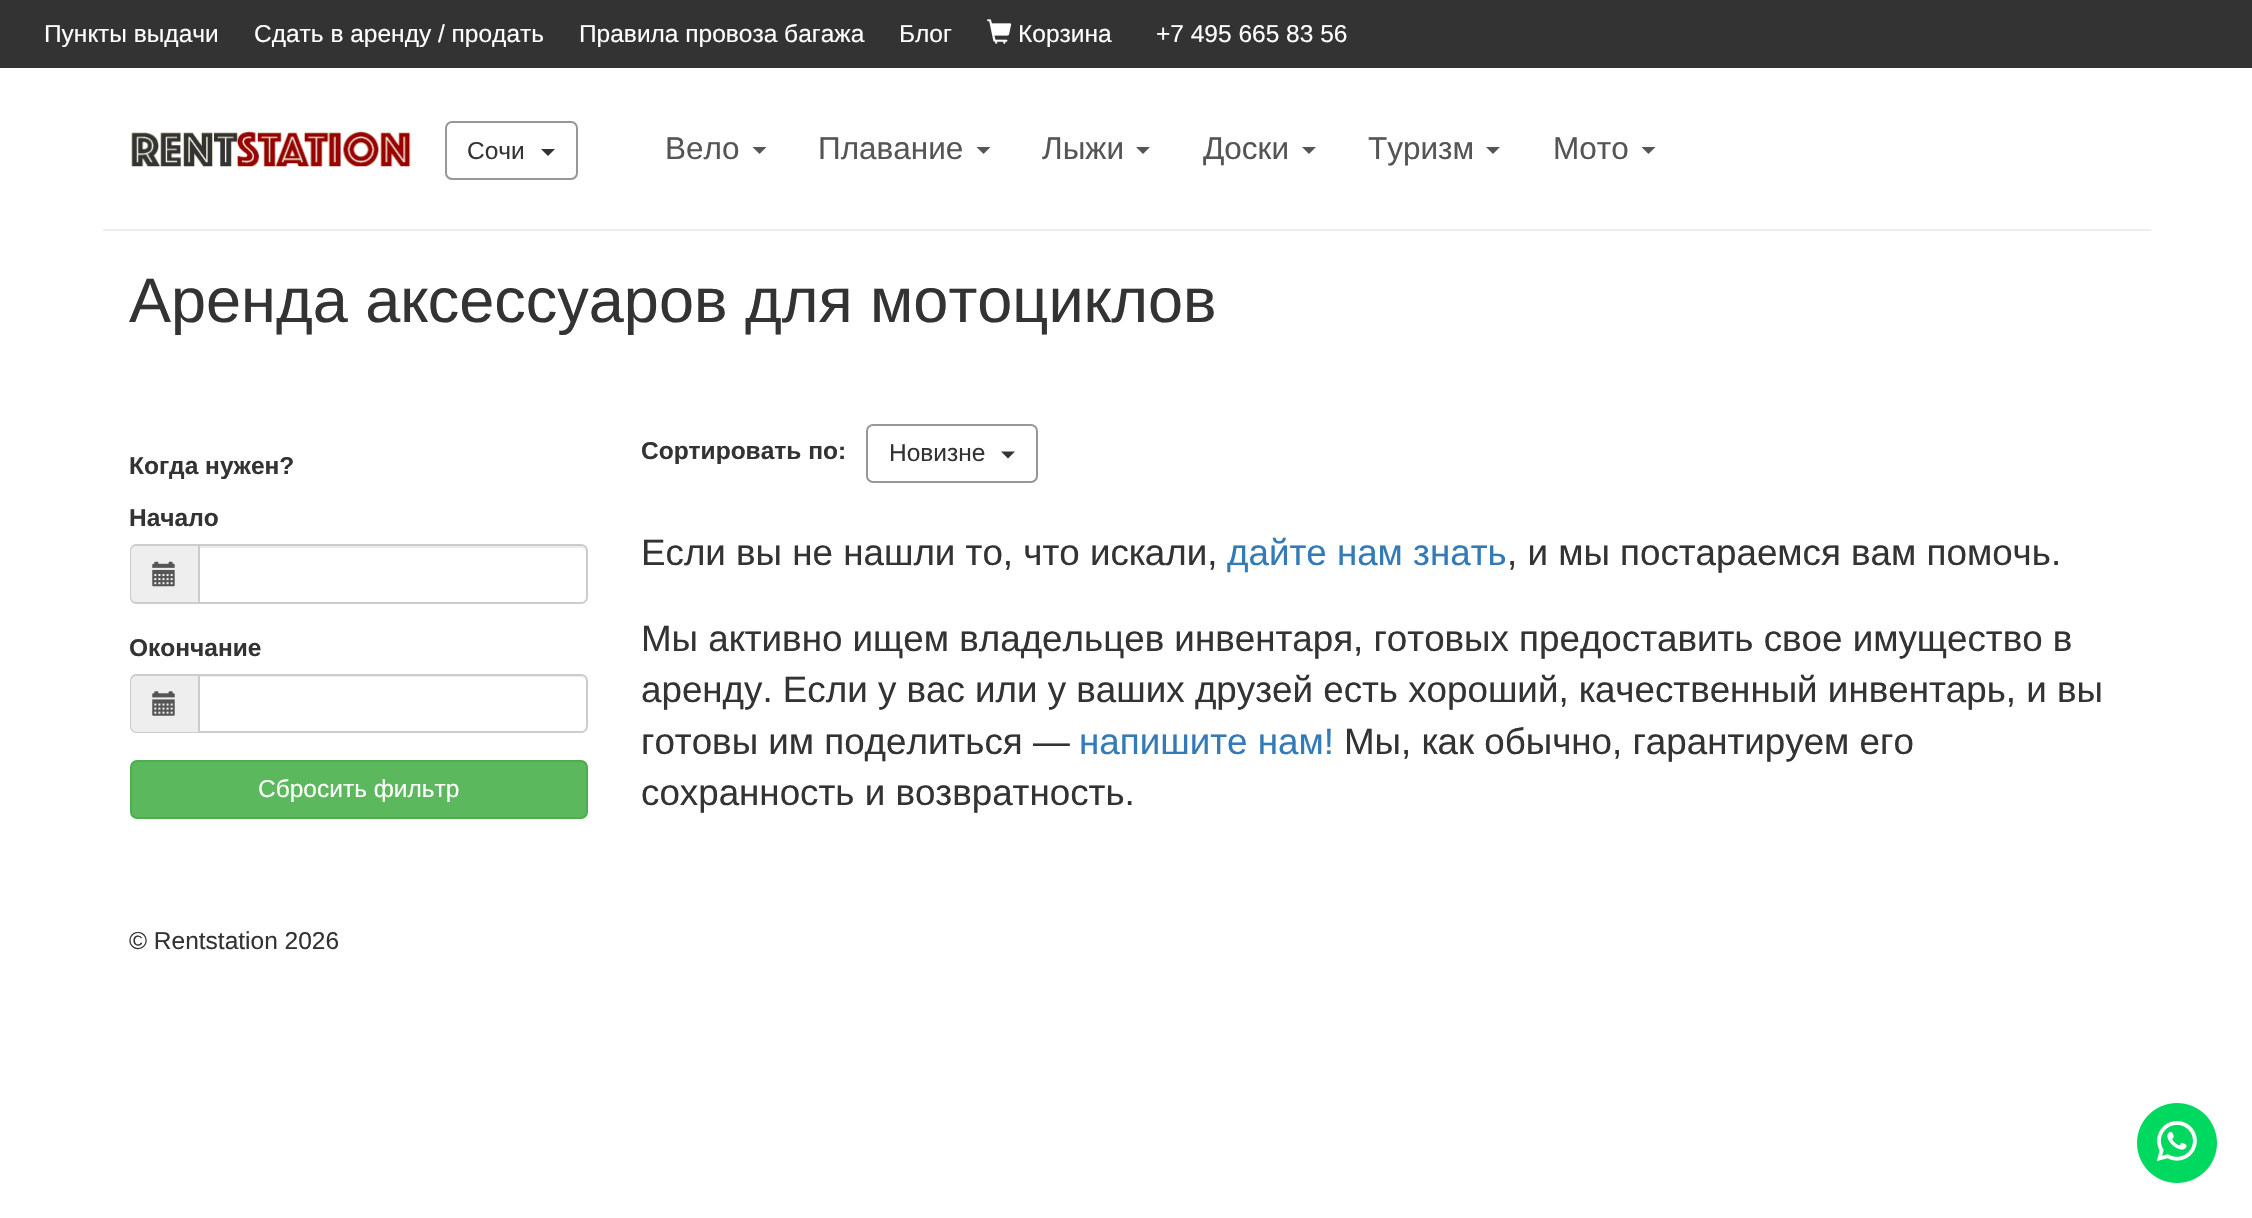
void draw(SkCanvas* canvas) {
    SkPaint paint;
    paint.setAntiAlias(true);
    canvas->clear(0xFFFFFFFF);
    paint.setColor(0xFF333333);
    canvas->drawRect(SkRect::MakeXYWH(0, 0, 2252, 68), paint);
    SkFont font1(fontMgr->matchFamilyStyle("Liberation Sans", SkFontStyle::Normal()), 24.5f);
    font1.setSubpixel(true);
    paint.setColor(0xFFFFFFFF);
    canvas->drawString("Пункты выдачи", 44, 42, font1, paint);
    canvas->drawString("Сдать в аренду / продать", 254, 42, font1, paint);
    canvas->drawString("Правила провоза багажа", 579, 42, font1, paint);
    canvas->drawString("Блог", 899, 42, font1, paint);
    canvas->drawImageRect(SkImages::DeferredFromEncodedData(SkData::MakeFromFileName("img1.png")), SkRect::MakeXYWH(987, 19, 25, 25), SkSamplingOptions());
    canvas->drawString("Корзина", 1018, 42, font1, paint);
    canvas->drawString("+7 495 665 83 56", 1156, 42, font1, paint);
    paint.setColor(0xFFEDEDED);
    canvas->drawRect(SkRect::MakeXYWH(103, 229, 2048, 2), paint);
    canvas->drawImageRect(SkImages::DeferredFromEncodedData(SkData::MakeFromFileName("img2.png")), SkRect::MakeXYWH(131, 131, 280, 36), SkSamplingOptions());
    paint.setStyle(SkPaint::kStroke_Style);
    paint.setStrokeWidth(2);
    paint.setColor(0xFF979797);
    canvas->drawRoundRect(SkRect::MakeXYWH(446, 122, 131, 57), 6, 6, paint);
    paint.setStyle(SkPaint::kFill_Style);
    paint.setColor(0xFF333333);
    canvas->drawString("Сочи", 467, 159, font1, paint);
    canvas->drawPath(SkPathBuilder().moveTo(541, 149).lineTo(555, 149).lineTo(548, 156).close().detach(), paint);
    SkFont font2(fontMgr->matchFamilyStyle("Liberation Sans", SkFontStyle::Normal()), 31.5f);
    font2.setSubpixel(true);
    paint.setColor(0xFF555555);
    canvas->drawString("Вело", 665, 159, font2, paint);
    canvas->drawPath(SkPathBuilder().moveTo(752.5f, 147).lineTo(766.5f, 147).lineTo(759.5f, 154).close().detach(), paint);
    canvas->drawString("Плавание", 818, 159, font2, paint);
    canvas->drawPath(SkPathBuilder().moveTo(976.5f, 147).lineTo(990.5f, 147).lineTo(983.5f, 154).close().detach(), paint);
    canvas->drawString("Лыжи", 1042, 159, font2, paint);
    canvas->drawPath(SkPathBuilder().moveTo(1136, 147).lineTo(1150, 147).lineTo(1143, 154).close().detach(), paint);
    canvas->drawString("Доски", 1203, 159, font2, paint);
    canvas->drawPath(SkPathBuilder().moveTo(1302, 147).lineTo(1316, 147).lineTo(1309, 154).close().detach(), paint);
    canvas->drawString("Туризм", 1368, 159, font2, paint);
    canvas->drawPath(SkPathBuilder().moveTo(1486, 147).lineTo(1500, 147).lineTo(1493, 154).close().detach(), paint);
    canvas->drawString("Mото", 1553, 159, font2, paint);
    canvas->drawPath(SkPathBuilder().moveTo(1641.5f, 147).lineTo(1655.5f, 147).lineTo(1648.5f, 154).close().detach(), paint);
    SkFont font3(fontMgr->matchFamilyStyle("Liberation Sans", SkFontStyle::Normal()), 63);
    font3.setSubpixel(true);
    paint.setColor(0xFF333333);
    canvas->drawString("Аренда аксессуаров для мотоциклов", 129, 322, font3, paint);
    SkFont font4(fontMgr->matchFamilyStyle("Liberation Sans", SkFontStyle::Bold()), 24.5f);
    font4.setSubpixel(true);
    canvas->drawString("Когда нужен?", 129, 474, font4, paint);
    canvas->drawString("Начало", 129, 526, font4, paint);
    paint.setColor(0xFFEEEEEE);
    canvas->drawPath(SkPathBuilder().moveTo(137, 544).lineTo(198, 544).lineTo(198, 604).lineTo(137, 604).cubicTo(133, 604, 130, 601, 130, 597).lineTo(130, 551).cubicTo(130, 547, 133, 544, 137, 544).close().detach(), paint);
    paint.setColor(0xFFCCCCCC);
    canvas->drawPath(SkPathBuilder(SkPathFillType::kEvenOdd).moveTo(136, 544).lineTo(198, 544).lineTo(198, 604).lineTo(136, 604).cubicTo(133, 604, 130, 601, 130, 597).lineTo(130, 551).cubicTo(130, 547, 133, 544, 136, 544).close().moveTo(136, 546).lineTo(198, 546).lineTo(198, 602).lineTo(136, 602).cubicTo(134, 602, 131, 600, 131, 597).lineTo(131, 551).cubicTo(131, 548, 134, 546, 136, 546).close().detach(), paint);
    canvas->drawImageRect(SkImages::DeferredFromEncodedData(SkData::MakeFromFileName("img3.png")), SkRect::MakeXYWH(152, 561, 23, 26), SkSamplingOptions());
    paint.setColor(0xFFECECEC);
    canvas->drawPath(SkPathBuilder().moveTo(200, 548).lineTo(581, 548).cubicTo(584, 548, 586, 550, 586, 553).lineTo(586, 551).cubicTo(586, 548, 584, 546, 581, 546).lineTo(200, 546).close().detach(), paint);
    paint.setStyle(SkPaint::kStroke_Style);
    paint.setColor(0xFFCCCCCC);
    canvas->drawPath(SkPathBuilder().moveTo(199, 545).lineTo(581, 545).cubicTo(584.5f, 545, 587, 547.5f, 587, 551).lineTo(587, 597).cubicTo(587, 600.5f, 584.5f, 603, 581, 603).lineTo(199, 603).close().detach(), paint);
    paint.setStyle(SkPaint::kFill_Style);
    paint.setColor(0xFF333333);
    canvas->drawString("Окончание", 129, 656, font4, paint);
    paint.setColor(0xFFEEEEEE);
    canvas->drawPath(SkPathBuilder().moveTo(137, 674).lineTo(198, 674).lineTo(198, 733).lineTo(137, 733).cubicTo(133, 733, 130, 730, 130, 726).lineTo(130, 681).cubicTo(130, 677, 133, 674, 137, 674).close().detach(), paint);
    paint.setColor(0xFFCCCCCC);
    canvas->drawPath(SkPathBuilder(SkPathFillType::kEvenOdd).moveTo(136, 674).lineTo(198, 674).lineTo(198, 733).lineTo(136, 733).cubicTo(133, 733, 130, 730, 130, 726).lineTo(130, 681).cubicTo(130, 677, 133, 674, 136, 674).close().moveTo(136, 676).lineTo(198, 676).lineTo(198, 732).lineTo(136, 732).cubicTo(134, 732, 131, 729, 131, 726).lineTo(131, 681).cubicTo(131, 678, 134, 676, 136, 676).close().detach(), paint);
    canvas->drawImageRect(SkImages::DeferredFromEncodedData(SkData::MakeFromFileName("img4.png")), SkRect::MakeXYWH(152, 691, 23, 25), SkSamplingOptions());
    paint.setColor(0xFFECECEC);
    canvas->drawPath(SkPathBuilder().moveTo(200, 677).lineTo(581, 677).cubicTo(584, 677, 586, 680, 586, 682).cubicTo(586, 679, 584, 676, 581, 676).lineTo(200, 676).close().detach(), paint);
    paint.setStyle(SkPaint::kStroke_Style);
    paint.setColor(0xFFCCCCCC);
    canvas->drawPath(SkPathBuilder().moveTo(199, 675).lineTo(581, 675).cubicTo(584.5f, 675, 587, 677.5f, 587, 681).lineTo(587, 726).cubicTo(587, 729.5f, 584.5f, 732, 581, 732).lineTo(199, 732).close().detach(), paint);
    paint.setStyle(SkPaint::kFill_Style);
    paint.setColor(0xFF5CB85C);
    canvas->drawRoundRect(SkRect::MakeXYWH(131, 761, 456, 57), 6, 6, paint);
    paint.setStyle(SkPaint::kStroke_Style);
    paint.setColor(0xFF4CAE4C);
    canvas->drawRoundRect(SkRect::MakeXYWH(131, 761, 456, 57), 6, 6, paint);
    paint.setStyle(SkPaint::kFill_Style);
    paint.setColor(0xFFFFFFFF);
    canvas->drawString("Сбросить фильтр", 258, 797, font1, paint);
    paint.setColor(0xFF333333);
    canvas->drawString("Сортировать по:", 641, 459, font4, paint);
    paint.setStyle(SkPaint::kStroke_Style);
    paint.setColor(0xFF979797);
    canvas->drawRoundRect(SkRect::MakeXYWH(867, 425, 170, 57), 6, 6, paint);
    paint.setStyle(SkPaint::kFill_Style);
    paint.setColor(0xFF333333);
    canvas->drawString("Новизне", 889, 461, font1, paint);
    canvas->drawPath(SkPathBuilder().moveTo(1001, 451.5f).lineTo(1015, 451.5f).lineTo(1008, 458.5f).close().detach(), paint);
    SkFont font5(fontMgr->matchFamilyStyle("Liberation Sans", SkFontStyle::Normal()), 36.75f);
    font5.setSubpixel(true);
    canvas->drawString("Если вы не нашли то, что искали,", 641, 565, font5, paint);
    paint.setColor(0xFF337AB7);
    canvas->drawString("дайте нам знать", 1227, 565, font5, paint);
    paint.setColor(0xFF333333);
    canvas->drawString(", и мы постараемся вам помочь.", 1507, 565, font5, paint);
    canvas->drawString("Мы активно ищем владельцев инвентаря, готовых предоставить свое имущество в", 641, 651, font5, paint);
    canvas->drawString("аренду. Если у вас или у ваших друзей есть хороший, качественный инвентарь, и вы", 641, 702, font5, paint);
    canvas->drawString("готовы им поделиться —", 641, 754, font5, paint);
    paint.setColor(0xFF337AB7);
    canvas->drawString("напишите нам!", 1079, 754, font5, paint);
    paint.setColor(0xFF333333);
    canvas->drawString("Мы, как обычно, гарантируем его", 1344, 754, font5, paint);
    canvas->drawString("сохранность и возвратность.", 641, 805, font5, paint);
    canvas->drawString("© Rentstation 2026", 129, 949, font1, paint);
    canvas->drawImageRect(SkImages::DeferredFromEncodedData(SkData::MakeFromFileName("img5.png")), SkRect::MakeXYWH(2137, 1103, 80, 80), SkSamplingOptions());
}
